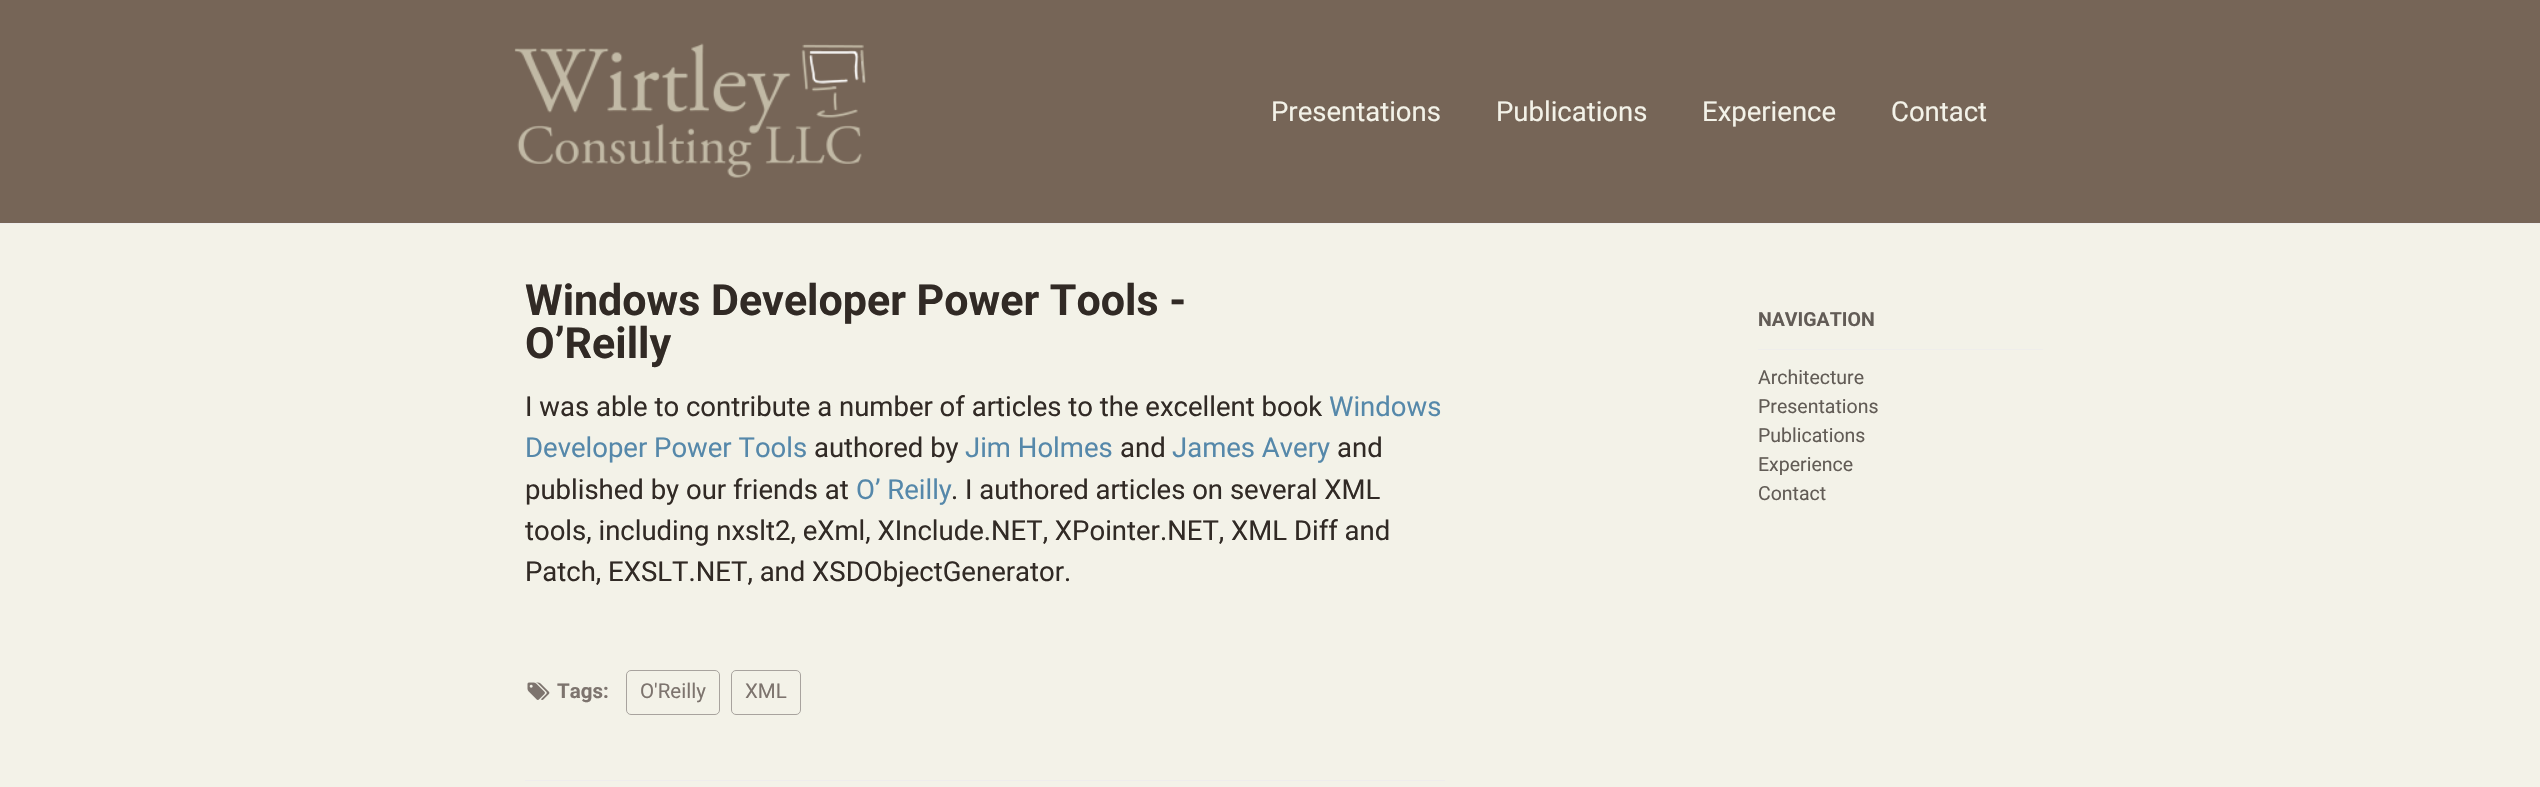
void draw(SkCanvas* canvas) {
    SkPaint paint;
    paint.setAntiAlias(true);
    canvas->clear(0xFFF3F2E8);
    paint.setColor(0xFF766557);
    canvas->drawRect(SkRect::MakeXYWH(0, 0, 2540, 223), paint);
    paint.setColor(0xFFEEEDEC);
    canvas->drawRect(SkRect::MakeXYWH(0, 223, 2540, 1), paint);
    canvas->drawImageRect(SkImages::DeferredFromEncodedData(SkData::MakeFromFileName("img1.png")), SkRect::MakeXYWH(514, 43, 352, 135), SkSamplingOptions());
    SkFont font1(fontMgr->matchFamilyStyle("Roboto", SkFontStyle::Normal()), 27.5f);
    font1.setSubpixel(true);
    paint.setColor(0xFFF3F2E8);
    canvas->drawString("Presentations", 1271, 121, font1, paint);
    canvas->drawString("Publications", 1496, 121, font1, paint);
    canvas->drawString("Experience", 1702, 121, font1, paint);
    canvas->drawString("Contact", 1891, 121, font1, paint);
    SkFont font2(fontMgr->matchFamilyStyle("Roboto", SkFontStyle::Bold()), 43);
    font2.setSubpixel(true);
    paint.setColor(0xFF312A25);
    canvas->drawString("Windows Developer Power Tools -", 525, 315, font2, paint);
    canvas->drawString("O’Reilly", 525, 358, font2, paint);
    canvas->drawString("I was able to contribute a number of articles to the excellent book", 525, 416, font1, paint);
    paint.setColor(0xFF5588AA);
    canvas->drawString("Windows", 1329, 416, font1, paint);
    canvas->drawString("Developer Power Tools", 525, 457, font1, paint);
    paint.setColor(0xFF312A25);
    canvas->drawString("authored by", 814, 457, font1, paint);
    paint.setColor(0xFF5588AA);
    canvas->drawString("Jim Holmes", 965, 457, font1, paint);
    paint.setColor(0xFF312A25);
    canvas->drawString("and", 1120, 457, font1, paint);
    paint.setColor(0xFF5588AA);
    canvas->drawString("James Avery", 1172, 457, font1, paint);
    paint.setColor(0xFF312A25);
    canvas->drawString("and", 1337, 457, font1, paint);
    canvas->drawString("published by our friends at", 525, 499, font1, paint);
    paint.setColor(0xFF5588AA);
    canvas->drawString("O’ Reilly", 856, 499, font1, paint);
    paint.setColor(0xFF312A25);
    canvas->drawString(". I authored articles on several XML", 951, 499, font1, paint);
    canvas->drawString("tools, including nxslt2, eXml, XInclude.NET, XPointer.NET, XML Diff and", 525, 540, font1, paint);
    canvas->drawString("Patch, EXSLT.NET, and XSDObjectGenerator.", 525, 581, font1, paint);
    canvas->drawImageRect(SkImages::DeferredFromEncodedData(SkData::MakeFromFileName("img2.png")), SkRect::MakeXYWH(527, 682, 23, 18), SkSamplingOptions());
    SkFont font3(fontMgr->matchFamilyStyle("Roboto", SkFontStyle::Bold()), 20.5f);
    font3.setSubpixel(true);
    paint.setColor(0xFF7D746E);
    canvas->drawString("Tags:", 557, 698, font3, paint);
    paint.setStyle(SkPaint::kStroke_Style);
    paint.setStrokeWidth(1);
    paint.setColor(0xFFA8A39E);
    canvas->drawRoundRect(SkRect::MakeXYWH(626.5f, 670.5f, 93, 44), 4.5f, 4.5f, paint);
    SkFont font4(fontMgr->matchFamilyStyle("Roboto", SkFontStyle::Normal()), 20.5f);
    font4.setSubpixel(true);
    paint.setStyle(SkPaint::kFill_Style);
    paint.setColor(0xFF7D746E);
    canvas->drawString("O'Reilly", 640, 698, font4, paint);
    paint.setStyle(SkPaint::kStroke_Style);
    paint.setColor(0xFFA8A39E);
    canvas->drawRoundRect(SkRect::MakeXYWH(731.5f, 670.5f, 69, 44), 4.5f, 4.5f, paint);
    paint.setStyle(SkPaint::kFill_Style);
    paint.setColor(0xFF7D746E);
    canvas->drawString("XML", 745, 698, font4, paint);
    paint.setColor(0xFFEEEDEC);
    canvas->drawRect(SkRect::MakeXYWH(525, 780, 920, 1), paint);
    paint.setColor(0xFFEFEEEB);
    canvas->drawRect(SkRect::MakeXYWH(1758, 349, 285, 1), paint);
    SkFont font5(fontMgr->matchFamilyStyle("Roboto", SkFontStyle::Bold()), 19.5f);
    font5.setSubpixel(true);
    paint.setColor(0xFF625C56);
    canvas->drawString("NAVIGATION", 1758, 326, font5, paint);
    SkFont font6(fontMgr->matchFamilyStyle("Roboto", SkFontStyle::Normal()), 19.5f);
    font6.setSubpixel(true);
    canvas->drawString("Architecture", 1758, 384, font6, paint);
    canvas->drawString("Presentations", 1758, 413, font6, paint);
    canvas->drawString("Publications", 1758, 442, font6, paint);
    canvas->drawString("Experience", 1758, 471, font6, paint);
    canvas->drawString("Contact", 1758, 500, font6, paint);
}
